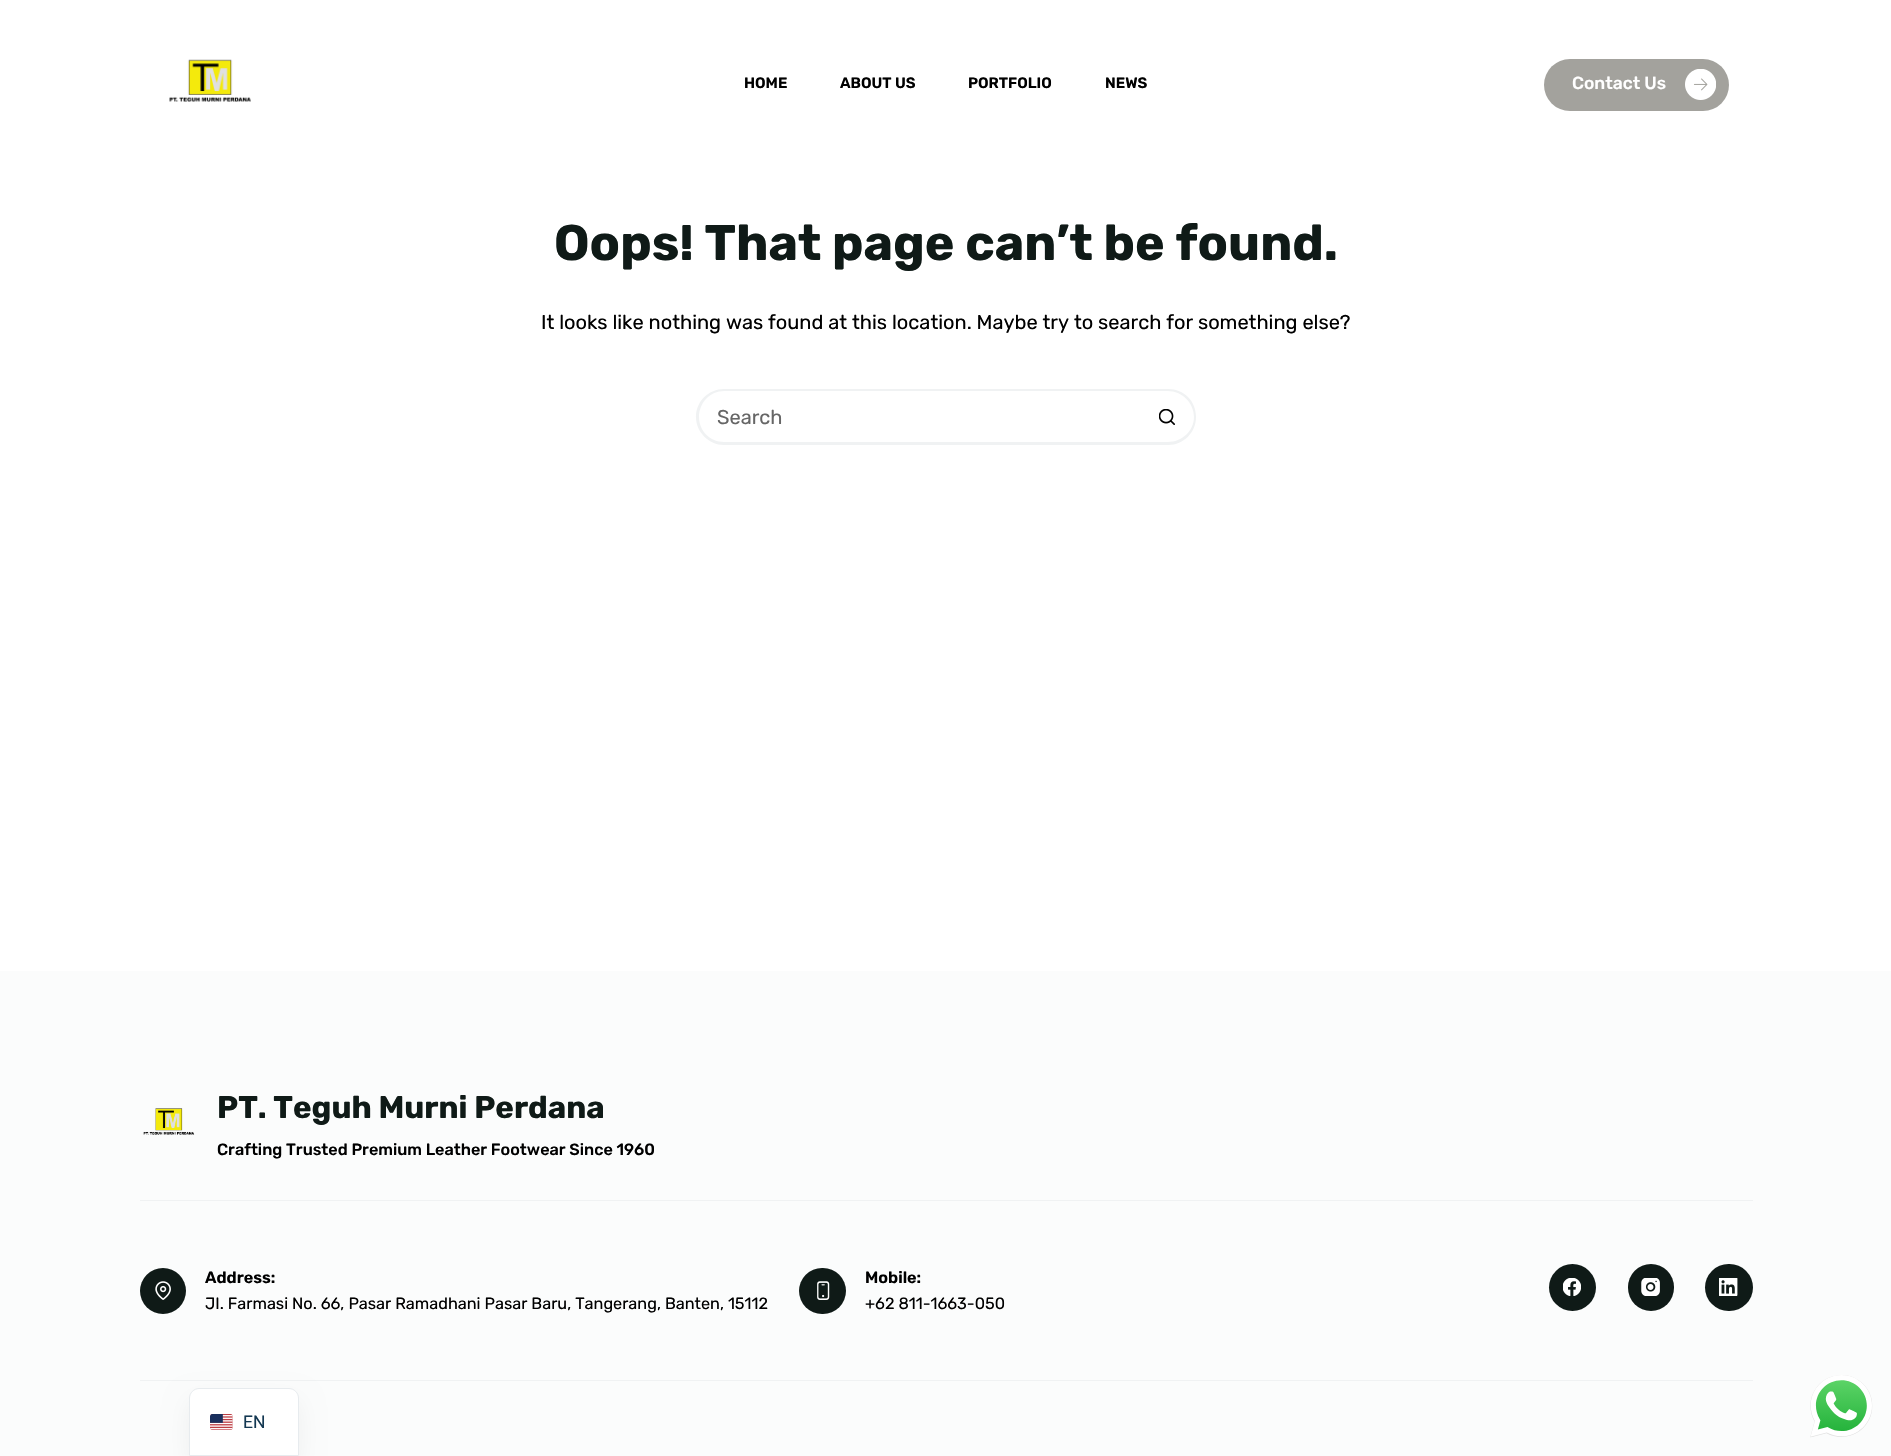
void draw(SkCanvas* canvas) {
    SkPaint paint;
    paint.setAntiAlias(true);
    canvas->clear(0xFFFFFFFF);
    canvas->drawImageRect(SkImages::DeferredFromEncodedData(SkData::MakeFromFileName("img1.png")), SkRect::MakeXYWH(169, 59, 82, 43), SkSamplingOptions());
    SkFont font1(fontMgr->matchFamilyStyle("Rubik", SkFontStyle(600, SkFontStyle::kNormal_Width, SkFontStyle::kUpright_Slant)), 15);
    font1.setSubpixel(true);
    paint.setColor(0xFF000000);
    canvas->drawString("HOME", 744, 88, font1, paint);
    canvas->drawString("ABOUT US", 840, 88, font1, paint);
    canvas->drawString("PORTFOLIO", 968, 88, font1, paint);
    canvas->drawString("NEWS", 1105, 88, font1, paint);
    paint.setColor(0xFFA3A29D);
    canvas->drawRoundRect(SkRect::MakeXYWH(1544, 59, 185, 52), 26, 26, paint);
    SkFont font2(fontMgr->matchFamilyStyle("Rubik", SkFontStyle(500, SkFontStyle::kNormal_Width, SkFontStyle::kUpright_Slant)), 17.5f);
    font2.setSubpixel(true);
    paint.setColor(0xFFFFFFFF);
    canvas->drawString("Contact Us", 1572, 89, font2, paint);
    canvas->drawImageRect(SkImages::DeferredFromEncodedData(SkData::MakeFromFileName("img2.png")), SkRect::MakeXYWH(1685, 69, 31, 31), SkSamplingOptions());
    SkFont font3(fontMgr->matchFamilyStyle("Rubik", SkFontStyle::Bold()), 50);
    font3.setSubpixel(true);
    paint.setColor(0xFF0F1A17);
    canvas->drawString("Oops! That page can’t be found.", 554, 260, font3, paint);
    SkFont font4(fontMgr->matchFamilyStyle("Rubik", SkFontStyle::Normal()), 20);
    font4.setSubpixel(true);
    paint.setColor(0xFF000000);
    canvas->drawString("It looks like nothing was found at this location. Maybe try to search for something else?", 541, 329, font4, paint);
    paint.setColor(0xFFF0F2F3);
    canvas->drawPath(SkPathBuilder(SkPathFillType::kEvenOdd).moveTo(724, 389).lineTo(1140, 389).lineTo(1140, 445).lineTo(724, 445).cubicTo(709, 445, 696, 432, 696, 417).cubicTo(696, 401, 709, 389, 724, 389).close().moveTo(724, 391).lineTo(1140, 391).lineTo(1140, 442).lineTo(724, 442).cubicTo(710, 442, 699, 431, 699, 417).cubicTo(699, 403, 710, 391, 724, 391).close().detach(), paint);
    paint.setColor(0xFF666666);
    canvas->drawString("Search", 717, 424, font4, paint);
    paint.setColor(0xFFF0F2F3);
    canvas->drawPath(SkPathBuilder(SkPathFillType::kEvenOdd).moveTo(1140, 389).lineTo(1168, 389).cubicTo(1184, 389, 1196, 401, 1196, 417).cubicTo(1196, 432, 1184, 445, 1168, 445).lineTo(1140, 445).close().moveTo(1140, 391).lineTo(1168, 391).cubicTo(1182, 391, 1194, 403, 1194, 417).cubicTo(1194, 431, 1182, 442, 1168, 442).lineTo(1140, 442).close().detach(), paint);
    canvas->drawImageRect(SkImages::DeferredFromEncodedData(SkData::MakeFromFileName("img3.png")), SkRect::MakeXYWH(1159, 409, 16, 16), SkSamplingOptions());
    paint.setColor(0xFFFBFCFC);
    canvas->drawRect(SkRect::MakeXYWH(0, 971, 1891, 485), paint);
    canvas->drawImageRect(SkImages::DeferredFromEncodedData(SkData::MakeFromFileName("img4.png")), SkRect::MakeXYWH(143, 1108, 52, 27), SkSamplingOptions());
    SkFont font5(fontMgr->matchFamilyStyle("Rubik", SkFontStyle::Bold()), 31.25f);
    font5.setSubpixel(true);
    paint.setColor(0xFF0F1A17);
    canvas->drawString("PT. Teguh Murni Perdana", 217, 1118, font5, paint);
    SkFont font6(fontMgr->matchFamilyStyle("Rubik", SkFontStyle(500, SkFontStyle::kNormal_Width, SkFontStyle::kUpright_Slant)), 16.25f);
    font6.setSubpixel(true);
    paint.setColor(0xFF000000);
    canvas->drawString("Crafting Trusted Premium Leather Footwear Since 1960", 217, 1155, font6, paint);
    paint.setColor(0xFFF0F2F3);
    canvas->drawRect(SkRect::MakeXYWH(140, 1200, 1613, 1), paint);
    canvas->drawRect(SkRect::MakeXYWH(140, 1380, 1613, 1), paint);
    paint.setColor(0xFF0F1A17);
    canvas->drawCircle(163, 1291, 23, paint);
    canvas->drawImageRect(SkImages::DeferredFromEncodedData(SkData::MakeFromFileName("img5.png")), SkRect::MakeXYWH(155, 1281, 16, 19), SkSamplingOptions());
    SkFont font7(fontMgr->matchFamilyStyle("Rubik", SkFontStyle(600, SkFontStyle::kNormal_Width, SkFontStyle::kUpright_Slant)), 16.25f);
    font7.setSubpixel(true);
    paint.setColor(0xFF000000);
    canvas->drawString("Address:", 205, 1283, font7, paint);
    SkFont font8(fontMgr->matchFamilyStyle("Rubik", SkFontStyle::Normal()), 16.25f);
    font8.setSubpixel(true);
    canvas->drawString("JI. Farmasi No. 66, Pasar Ramadhani Pasar Baru, Tangerang, Banten, 15112", 205, 1309, font8, paint);
    paint.setColor(0xFF0F1A17);
    canvas->drawRoundRect(SkRect::MakeXYWH(799, 1268, 47, 46), 23, 23, paint);
    canvas->drawImageRect(SkImages::DeferredFromEncodedData(SkData::MakeFromFileName("img6.png")), SkRect::MakeXYWH(817, 1281, 13, 19), SkSamplingOptions());
    paint.setColor(0xFF000000);
    canvas->drawString("Mobile:", 865, 1283, font7, paint);
    canvas->drawString("+62 811-1663-050", 865, 1309, font8, paint);
    paint.setColor(0xFF0F1A17);
    canvas->drawCircle(1572.5f, 1287.5f, 23.5f, paint);
    canvas->drawImageRect(SkImages::DeferredFromEncodedData(SkData::MakeFromFileName("img7.png")), SkRect::MakeXYWH(1563, 1278, 18, 18), SkSamplingOptions());
    canvas->drawRoundRect(SkRect::MakeXYWH(1628, 1264, 46, 47), 23, 23, paint);
    canvas->drawImageRect(SkImages::DeferredFromEncodedData(SkData::MakeFromFileName("img8.png")), SkRect::MakeXYWH(1641, 1278, 19, 18), SkSamplingOptions());
    canvas->drawRoundRect(SkRect::MakeXYWH(1705, 1264, 48, 47), 23.5f, 23.5f, paint);
    canvas->drawImageRect(SkImages::DeferredFromEncodedData(SkData::MakeFromFileName("img9.png")), SkRect::MakeXYWH(1719, 1278, 19, 18), SkSamplingOptions());
    paint.setColor(0x0D000000);
    paint.setMaskFilter(SkMaskFilter::MakeBlur(kNormal_SkBlurStyle, 12.5f));
    canvas->drawRoundRect(SkRect::MakeXYWH(189, 1400, 110, 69), 10, 10, paint);
    paint.setMaskFilter(nullptr);
    paint.setColor(0xFFFFFFFF);
    canvas->drawPath(SkPathBuilder().moveTo(199, 1388.5f).lineTo(289, 1388.5f).cubicTo(294, 1388.5f, 298.5f, 1393, 298.5f, 1398).lineTo(298.5f, 1455.5f).lineTo(189.5f, 1455.5f).lineTo(189.5f, 1398).cubicTo(189.5f, 1393, 194, 1388.5f, 199, 1388.5f).close().detach(), paint);
    paint.setStyle(SkPaint::kStroke_Style);
    paint.setStrokeWidth(1);
    paint.setColor(0xFFE7EBEE);
    canvas->drawPath(SkPathBuilder().moveTo(199, 1388.5f).lineTo(289, 1388.5f).cubicTo(294, 1388.5f, 298.5f, 1393, 298.5f, 1398).lineTo(298.5f, 1455.5f).lineTo(189.5f, 1455.5f).lineTo(189.5f, 1398).cubicTo(189.5f, 1393, 194, 1388.5f, 199, 1388.5f).close().detach(), paint);
    canvas->drawImageRect(SkImages::DeferredFromEncodedData(SkData::MakeFromFileName("img10.png")), SkRect::MakeXYWH(210, 1414, 23, 16), SkSamplingOptions());
    SkFont font9(fontMgr->matchFamilyStyle("Roboto", SkFontStyle::Normal()), 17.5f);
    font9.setSubpixel(true);
    paint.setStyle(SkPaint::kFill_Style);
    paint.setColor(0xFF143852);
    canvas->drawString("EN", 243, 1428, font9, paint);
    canvas->drawImageRect(SkImages::DeferredFromEncodedData(SkData::MakeFromFileName("img11.png")), SkRect::MakeXYWH(1810, 1375, 63, 63), SkSamplingOptions());
}
